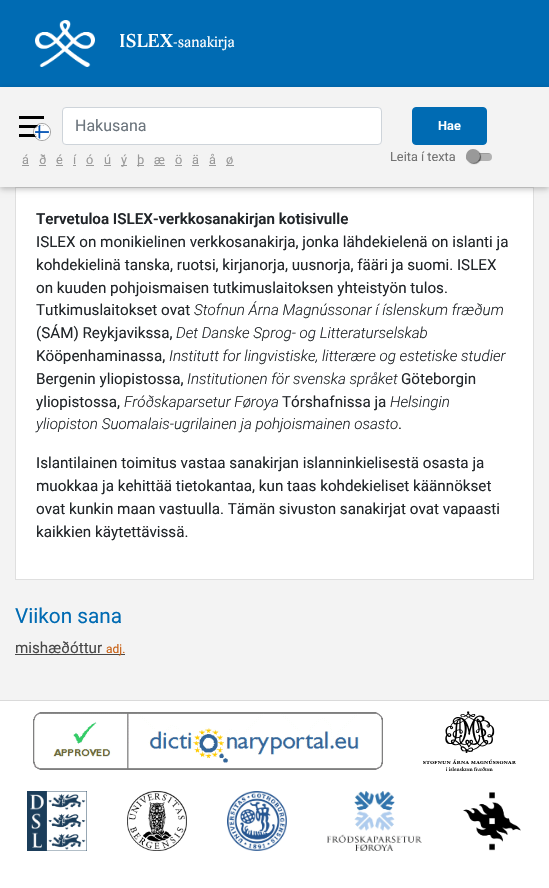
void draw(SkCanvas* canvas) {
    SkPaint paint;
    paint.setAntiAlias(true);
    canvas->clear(0xFFFFFFFF);
    paint.setColor(0xFFF3F3F3);
    canvas->drawRect(SkRect::MakeXYWH(0, 87, 549, 613), paint);
    paint.setColor(0xFF006BB3);
    canvas->drawRect(SkRect::MakeXYWH(0, 0, 549, 87), paint);
    canvas->drawImageRect(SkImages::DeferredFromEncodedData(SkData::MakeFromFileName("img1.png")), SkRect::MakeXYWH(35, 20, 60, 47), SkSamplingOptions());
    SkFont font1(fontMgr->matchFamilyStyle("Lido", SkFontStyle(500, SkFontStyle::kNormal_Width, SkFontStyle::kUpright_Slant)), 19);
    font1.setSubpixel(true);
    paint.setColor(0xFFFFFFFF);
    canvas->drawString("ISLEX", 119, 47, font1, paint);
    SkFont font2(fontMgr->matchFamilyStyle("Lido", SkFontStyle::Normal()), 15.5f);
    font2.setSubpixel(true);
    canvas->drawString("-sanakirja", 173, 47, font2, paint);
    canvas->drawRect(SkRect::MakeXYWH(15.5f, 187.5f, 518, 392), paint);
    paint.setStyle(SkPaint::kStroke_Style);
    paint.setStrokeWidth(1);
    paint.setColor(0xFFDFDFDF);
    canvas->drawRect(SkRect::MakeXYWH(15.5f, 187.5f, 518, 392), paint);
    canvas->save();
    canvas->clipPath(SkPathBuilder(SkPathFillType::kEvenOdd).moveTo(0, 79).lineTo(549, 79).lineTo(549, 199).lineTo(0, 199).close().moveTo(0, 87).lineTo(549, 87).lineTo(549, 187).lineTo(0, 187).close().detach(), true);
    paint.setStyle(SkPaint::kFill_Style);
    paint.setColor(0x40000000);
    paint.setMaskFilter(SkMaskFilter::MakeBlur(kNormal_SkBlurStyle, 3));
    canvas->drawRect(SkRect::MakeXYWH(0, 89, 549, 100), paint);
    paint.setMaskFilter(nullptr);
    canvas->restore();
    paint.setColor(0xFF000000);
    canvas->drawRect(SkRect::MakeXYWH(19, 116, 25, 3), paint);
    canvas->drawRect(SkRect::MakeXYWH(19, 134, 25, 3), paint);
    canvas->drawRect(SkRect::MakeXYWH(19, 125, 25, 3), paint);
    paint.setStyle(SkPaint::kStroke_Style);
    paint.setColor(0x57000000);
    canvas->drawCircle(42, 132, 8.5f, paint);
    paint.setColor(0xFFFFFFFF);
    canvas->drawCircle(42, 132, 7.5f, paint);
    canvas->drawImageRect(SkImages::DeferredFromEncodedData(SkData::MakeFromFileName("img2.png")), SkRect::MakeXYWH(35, 125, 14, 14), SkSamplingOptions());
    paint.setStyle(SkPaint::kFill_Style);
    canvas->drawRoundRect(SkRect::MakeXYWH(62.5f, 107.5f, 319, 37), 3.5f, 3.5f, paint);
    paint.setStyle(SkPaint::kStroke_Style);
    paint.setColor(0xFFCED4DA);
    canvas->drawRoundRect(SkRect::MakeXYWH(62.5f, 107.5f, 319, 37), 3.5f, 3.5f, paint);
    SkFont font3(fontMgr->matchFamilyStyle("Roboto", SkFontStyle::Normal()), 16);
    font3.setSubpixel(true);
    paint.setStyle(SkPaint::kFill_Style);
    paint.setColor(0xFF6C757D);
    canvas->drawString("Hakusana", 75, 131, font3, paint);
    SkFont font4(fontMgr->matchFamilyStyle("Roboto", SkFontStyle::Normal()), 12.75f);
    font4.setSubpixel(true);
    paint.setColor(0xFF9A9A9A);
    canvas->drawString("á", 22, 164, font4, paint);
    canvas->drawRect(SkRect::MakeXYWH(22, 165, 7, 1), paint);
    canvas->drawString("ð", 39, 164, font4, paint);
    canvas->drawRect(SkRect::MakeXYWH(39, 165, 7, 1), paint);
    canvas->drawString("é", 56, 164, font4, paint);
    canvas->drawRect(SkRect::MakeXYWH(56, 165, 7, 1), paint);
    canvas->drawString("í", 73, 164, font4, paint);
    canvas->drawRect(SkRect::MakeXYWH(73, 165, 3, 1), paint);
    canvas->drawString("ó", 86, 164, font4, paint);
    canvas->drawRect(SkRect::MakeXYWH(86, 165, 8, 1), paint);
    canvas->drawString("ú", 104, 164, font4, paint);
    canvas->drawRect(SkRect::MakeXYWH(104, 165, 7, 1), paint);
    canvas->drawRect(SkRect::MakeXYWH(121, 165, 6, 1), paint);
    canvas->drawString("ý", 121, 164, font4, paint);
    canvas->drawRect(SkRect::MakeXYWH(137, 165, 7, 1), paint);
    canvas->drawString("þ", 137, 164, font4, paint);
    canvas->drawString("æ", 154, 164, font4, paint);
    canvas->drawRect(SkRect::MakeXYWH(154, 165, 11, 1), paint);
    canvas->drawString("ö", 175, 164, font4, paint);
    canvas->drawRect(SkRect::MakeXYWH(175, 165, 7, 1), paint);
    canvas->drawString("ä", 192, 164, font4, paint);
    canvas->drawRect(SkRect::MakeXYWH(192, 165, 7, 1), paint);
    canvas->drawString("å", 209, 164, font4, paint);
    canvas->drawRect(SkRect::MakeXYWH(209, 165, 7, 1), paint);
    canvas->drawString("ø", 226, 164, font4, paint);
    canvas->drawRect(SkRect::MakeXYWH(226, 165, 8, 1), paint);
    paint.setColor(0xFF727272);
    canvas->drawString("Leita í texta", 390, 161, font4, paint);
    paint.setColor(0xFFB2B2B2);
    canvas->drawRoundRect(SkRect::MakeXYWH(466, 153, 26, 8), 4, 4, paint);
    paint.setColor(0x1F000000);
    canvas->drawPath(SkPathBuilder().moveTo(470, 153).cubicTo(466, 153, 464.5f, 158, 467.5f, 160.5f).cubicTo(467.5f, 159.5f, 467, 159, 467, 158).cubicTo(467, 156, 468, 154, 470, 154).lineTo(490.5f, 154).cubicTo(490, 153.5f, 489, 153, 488, 153).close().detach(), paint);
    paint.setColor(0x8F000000);
    paint.setMaskFilter(SkMaskFilter::MakeBlur(kNormal_SkBlurStyle, 0.5f));
    canvas->drawRoundRect(SkRect::MakeXYWH(467, 150, 14, 14), 7, 7, paint);
    paint.setMaskFilter(nullptr);
    paint.setColor(0xFF999999);
    canvas->drawCircle(473, 156, 7, paint);
    paint.setColor(0xFF006BB3);
    canvas->drawRoundRect(SkRect::MakeXYWH(412.5f, 107.5f, 74, 37), 3.5f, 3.5f, paint);
    paint.setStyle(SkPaint::kStroke_Style);
    canvas->drawRoundRect(SkRect::MakeXYWH(412.5f, 107.5f, 74, 37), 3.5f, 3.5f, paint);
    SkFont font5(fontMgr->matchFamilyStyle("Roboto", SkFontStyle(600, SkFontStyle::kNormal_Width, SkFontStyle::kUpright_Slant)), 12.75f);
    font5.setSubpixel(true);
    paint.setStyle(SkPaint::kFill_Style);
    paint.setColor(0xFFFFFFFF);
    canvas->drawString("Hae", 438, 130, font5, paint);
    SkFont font6(fontMgr->matchFamilyStyle("Roboto", SkFontStyle(600, SkFontStyle::kNormal_Width, SkFontStyle::kUpright_Slant)), 15.2f);
    font6.setSubpixel(true);
    paint.setColor(0xFF212529);
    canvas->drawString("Tervetuloa ISLEX-verkkosanakirjan kotisivulle", 36, 224, font6, paint);
    SkFont font7(fontMgr->matchFamilyStyle("Roboto", SkFontStyle::Normal()), 15.2f);
    font7.setSubpixel(true);
    canvas->drawString("ISLEX on monikielinen verkkosanakirja, jonka lähdekielenä on islanti ja", 36, 247, font7, paint);
    canvas->drawString("kohdekielinä tanska, ruotsi, kirjanorja, uusnorja, fääri ja suomi. ISLEX", 36, 270, font7, paint);
    canvas->drawString("on kuuden pohjoismaisen tutkimuslaitoksen yhteistyön tulos.", 36, 293, font7, paint);
    canvas->drawString("Tutkimuslaitokset ovat", 36, 315, font7, paint);
    SkFont font8(fontMgr->matchFamilyStyle("Roboto", SkFontStyle(300, SkFontStyle::kNormal_Width, SkFontStyle::kItalic_Slant)), 15.2f);
    font8.setSubpixel(true);
    canvas->drawString("Stofnun Árna Magnússonar í íslenskum fræðum", 194, 315, font8, paint);
    canvas->drawString("(SÁM) Reykjavikssa,", 36, 338, font7, paint);
    canvas->drawString("Det Danske Sprog- og Litteraturselskab", 176, 338, font8, paint);
    canvas->drawString("Kööpenhaminassa,", 36, 361, font7, paint);
    canvas->drawString("Institutt for lingvistiske, litterære og estetiske studier", 169, 361, font8, paint);
    canvas->drawString("Bergenin yliopistossa,", 36, 384, font7, paint);
    canvas->drawString("Institutionen för svenska språket", 187, 384, font8, paint);
    canvas->drawString("Göteborgin", 401, 384, font7, paint);
    canvas->drawString("yliopistossa,", 36, 407, font7, paint);
    canvas->drawString("Fróðskaparsetur Føroya", 124, 407, font8, paint);
    canvas->drawString("Tórshafnissa ja", 282, 407, font7, paint);
    canvas->drawString("Helsingin", 390, 407, font8, paint);
    canvas->drawString("yliopiston Suomalais-ugrilainen ja pohjoismainen osasto", 36, 429, font8, paint);
    canvas->drawString(".", 398, 429, font7, paint);
    canvas->drawString("Islantilainen toimitus vastaa sanakirjan islanninkielisestä osasta ja", 36, 468, font7, paint);
    canvas->drawString("muokkaa ja kehittää tietokantaa, kun taas kohdekieliset käännökset", 36, 491, font7, paint);
    canvas->drawString("ovat kunkin maan vastuulla. Tämän sivuston sanakirjat ovat vapaasti", 36, 514, font7, paint);
    canvas->drawString("kaikkien käytettävissä.", 36, 537, font7, paint);
    SkFont font9(fontMgr->matchFamilyStyle("Roboto", SkFontStyle::Normal()), 20.75f);
    font9.setSubpixel(true);
    paint.setColor(0xFF006BB3);
    canvas->drawString("Viikon sana", 15, 623, font9, paint);
    paint.setColor(0xFF474747);
    canvas->drawString("mishæðóttur", 15, 653, font7, paint);
    canvas->drawRect(SkRect::MakeXYWH(15, 654, 110, 1), paint);
    SkFont font10(fontMgr->matchFamilyStyle("Roboto", SkFontStyle::Normal()), 12);
    font10.setSubpixel(true);
    paint.setColor(0xFFC86013);
    canvas->drawString("adj.", 106, 653, font10, paint);
    paint.setColor(0xFFDADADA);
    canvas->drawRect(SkRect::MakeXYWH(0, 700, 549, 1), paint);
    canvas->drawImageRect(SkImages::DeferredFromEncodedData(SkData::MakeFromFileName("img3.png")), SkRect::MakeXYWH(33, 712, 350, 58), SkSamplingOptions());
    canvas->drawImageRect(SkImages::DeferredFromEncodedData(SkData::MakeFromFileName("img4.png")), SkRect::MakeXYWH(423, 711, 93, 60), SkSamplingOptions());
    canvas->drawImageRect(SkImages::DeferredFromEncodedData(SkData::MakeFromFileName("img5.png")), SkRect::MakeXYWH(27, 791, 60, 60), SkSamplingOptions());
    canvas->drawImageRect(SkImages::DeferredFromEncodedData(SkData::MakeFromFileName("img6.png")), SkRect::MakeXYWH(127, 791, 60, 60), SkSamplingOptions());
    canvas->drawImageRect(SkImages::DeferredFromEncodedData(SkData::MakeFromFileName("img7.png")), SkRect::MakeXYWH(227, 791, 60, 60), SkSamplingOptions());
    canvas->drawImageRect(SkImages::DeferredFromEncodedData(SkData::MakeFromFileName("img8.png")), SkRect::MakeXYWH(327, 791, 95, 60), SkSamplingOptions());
    canvas->drawImageRect(SkImages::DeferredFromEncodedData(SkData::MakeFromFileName("img9.png")), SkRect::MakeXYWH(463, 792, 58, 59), SkSamplingOptions());
}
